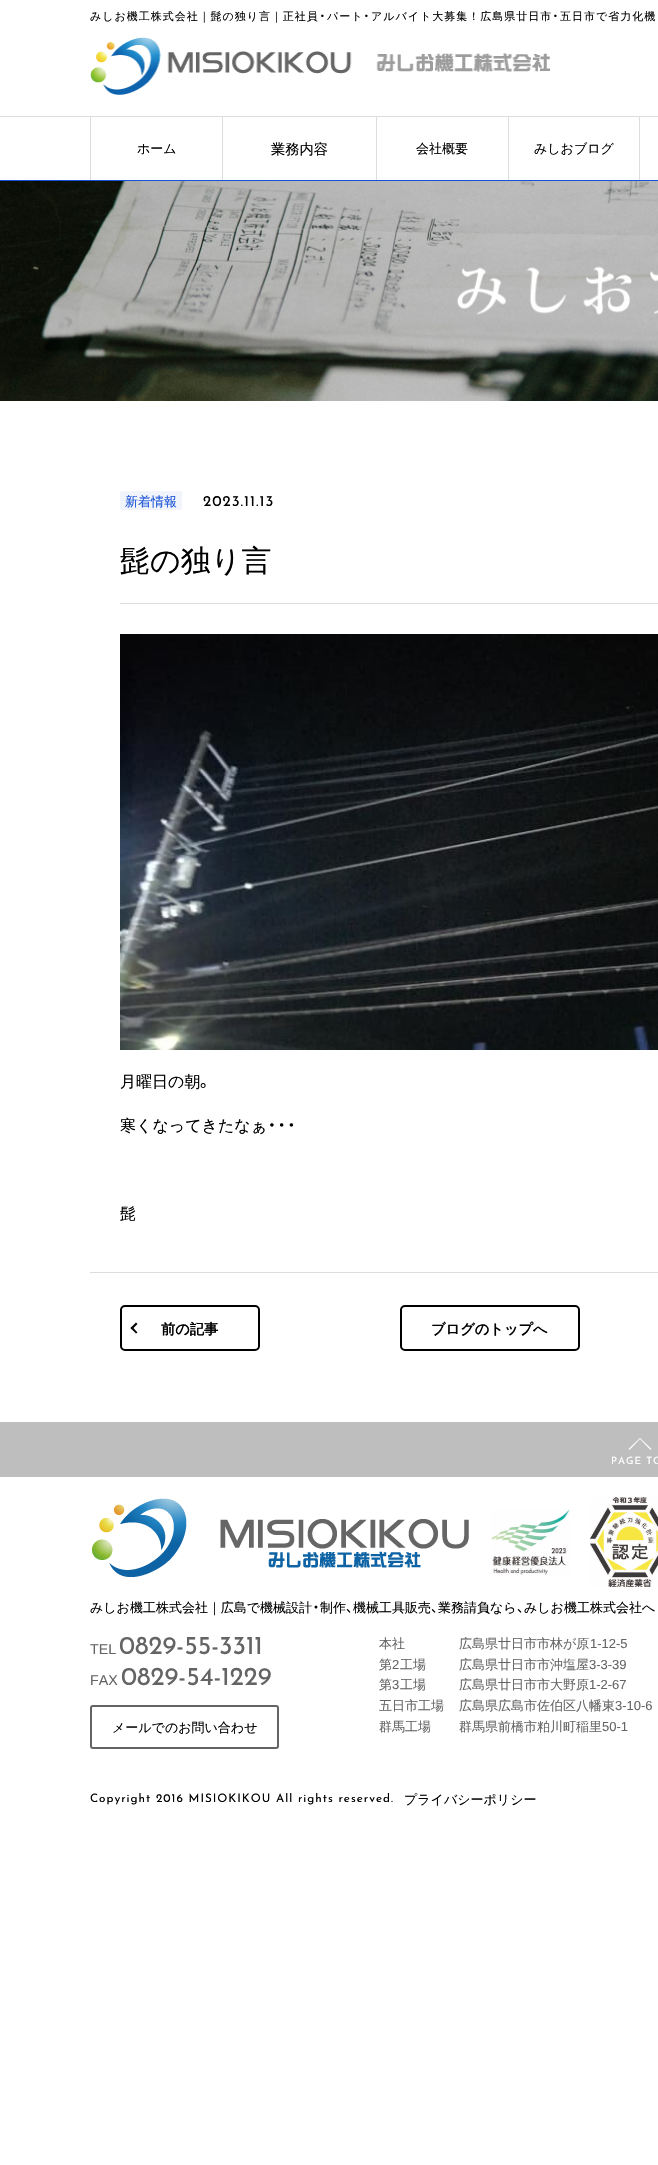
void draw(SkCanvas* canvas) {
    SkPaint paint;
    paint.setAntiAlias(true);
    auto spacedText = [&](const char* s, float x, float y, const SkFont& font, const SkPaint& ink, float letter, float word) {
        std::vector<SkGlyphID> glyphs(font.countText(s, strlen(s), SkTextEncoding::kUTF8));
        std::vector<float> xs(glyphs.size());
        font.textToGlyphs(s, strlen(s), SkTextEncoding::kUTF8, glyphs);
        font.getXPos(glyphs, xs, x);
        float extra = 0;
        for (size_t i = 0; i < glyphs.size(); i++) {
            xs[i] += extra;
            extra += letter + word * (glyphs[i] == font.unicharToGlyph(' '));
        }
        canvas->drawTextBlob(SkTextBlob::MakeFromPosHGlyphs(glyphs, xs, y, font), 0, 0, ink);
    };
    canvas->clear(0xFFFFFFFF);
    SkFont font1(fontMgr->matchFamilyStyle("WenQuanYi Zen Hei", SkFontStyle(500, SkFontStyle::kNormal_Width, SkFontStyle::kUpright_Slant)), 11);
    font1.setSubpixel(true);
    paint.setColor(0xFF000000);
    spacedText("みしお機工株式会社｜髭の独り言｜正社員", 90, 20, font1, paint, 1, 0);
    SkFont font2(fontMgr->matchFamilyStyle("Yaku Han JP", SkFontStyle::Normal()), 11);
    font2.setSubpixel(true);
    spacedText("・", 319, 20, font2, paint, 1, 0);
    spacedText("パート", 327, 20, font1, paint, 1, 0);
    spacedText("・", 363, 20, font2, paint, 1, 0);
    spacedText("アルバイト大募集！広島県廿日市", 371, 20, font1, paint, 1, 0);
    spacedText("・", 552, 20, font2, paint, 1, 0);
    spacedText("五日市で省力化機", 560, 20, font1, paint, 1, 0);
    canvas->drawImageRect(SkImages::DeferredFromEncodedData(SkData::MakeFromFileName("img1.png")), SkRect::MakeXYWH(90, 37, 460, 58), SkSamplingOptions());
    paint.setColor(0xFFDDDDDD);
    canvas->drawRect(SkRect::MakeXYWH(0, 116, 658, 1), paint);
    paint.setColor(0xFF1852D6);
    canvas->drawRect(SkRect::MakeXYWH(0, 180, 658, 1), paint);
    paint.setColor(0xFFDDDDDD);
    canvas->drawRect(SkRect::MakeXYWH(90, 117, 1, 63), paint);
    SkFont font3(fontMgr->matchFamilyStyle("WenQuanYi Zen Hei", SkFontStyle(500, SkFontStyle::kNormal_Width, SkFontStyle::kUpright_Slant)), 13);
    font3.setSubpixel(true);
    paint.setColor(0xFF000000);
    canvas->drawString("ホーム", 137, 153, font3, paint);
    paint.setColor(0xFFDDDDDD);
    canvas->drawRect(SkRect::MakeXYWH(222, 117, 1, 63), paint);
    SkFont font4(fontMgr->matchFamilyStyle("WenQuanYi Zen Hei", SkFontStyle(500, SkFontStyle::kNormal_Width, SkFontStyle::kUpright_Slant)), 14.25f);
    font4.setSubpixel(true);
    paint.setColor(0xFF000000);
    canvas->drawString("業務内容", 271, 154, font4, paint);
    paint.setColor(0xFFDDDDDD);
    canvas->drawRect(SkRect::MakeXYWH(376, 117, 1, 63), paint);
    paint.setColor(0xFF000000);
    canvas->drawString("会社概要", 416, 153, font3, paint);
    paint.setColor(0xFFDDDDDD);
    canvas->drawRect(SkRect::MakeXYWH(508, 117, 1, 63), paint);
    paint.setColor(0xFF000000);
    canvas->drawString("みしおブログ", 534, 153, font3, paint);
    paint.setColor(0xFFDDDDDD);
    canvas->drawRect(SkRect::MakeXYWH(639, 117, 1, 63), paint);
    canvas->drawImageRect(SkImages::DeferredFromEncodedData(SkData::MakeFromFileName("img2.png")), SkRect::MakeXYWH(0, 181, 658, 220), SkSamplingOptions());
    paint.setColor(0xFFF1F4FB);
    canvas->drawRoundRect(SkRect::MakeXYWH(120, 491, 62, 19), 2, 2, paint);
    paint.setColor(0xFF1852D6);
    canvas->drawString("新着情報", 125, 506, font3, paint);
    SkFont font5(fontMgr->matchFamilyStyle("Josefin Sans", SkFontStyle(100, SkFontStyle::kNormal_Width, SkFontStyle::kUpright_Slant)), 15);
    font5.setSubpixel(true);
    paint.setColor(0xFF000000);
    spacedText("2023.11.13", 203, 506, font5, paint, 1, 0);
    paint.setColor(0xFFDDDDDD);
    canvas->drawRect(SkRect::MakeXYWH(120, 603, 538, 1), paint);
    SkFont font6(fontMgr->matchFamilyStyle("WenQuanYi Zen Hei", SkFontStyle(500, SkFontStyle::kNormal_Width, SkFontStyle::kUpright_Slant)), 30);
    font6.setSubpixel(true);
    paint.setColor(0xFF000000);
    canvas->drawString("髭の独り言", 120, 571, font6, paint);
    canvas->drawImageRect(SkImages::DeferredFromEncodedData(SkData::MakeFromFileName("img3.png")), SkRect::MakeXYWH(120, 634, 538, 416), SkSamplingOptions());
    SkFont font7(fontMgr->matchFamilyStyle("WenQuanYi Zen Hei", SkFontStyle(500, SkFontStyle::kNormal_Width, SkFontStyle::kUpright_Slant)), 16);
    font7.setSubpixel(true);
    canvas->drawString("月曜日の朝", 120, 1087, font7, paint);
    SkFont font8(fontMgr->matchFamilyStyle("Yaku Han JP", SkFontStyle::Normal()), 16);
    font8.setSubpixel(true);
    canvas->drawString("。", 200, 1087, font8, paint);
    canvas->drawString("寒くなってきたなぁ", 120, 1131, font7, paint);
    canvas->drawString("・・・", 267, 1131, font8, paint);
    canvas->drawString("髭", 120, 1219, font7, paint);
    paint.setColor(0xFFDDDDDD);
    canvas->drawRect(SkRect::MakeXYWH(90, 1272, 568, 1), paint);
    paint.setStyle(SkPaint::kStroke_Style);
    paint.setStrokeWidth(2);
    paint.setColor(0xFF000000);
    canvas->drawRoundRect(SkRect::MakeXYWH(121, 1306, 138, 44), 4, 4, paint);
    paint.setStyle(SkPaint::kFill_Style);
    canvas->drawPath(SkPathBuilder().moveTo(132, 1326.5f).lineTo(137.5f, 1332.5f).lineTo(136, 1333.5f).lineTo(130.5f, 1328).close().detach(), paint);
    canvas->drawPath(SkPathBuilder().moveTo(136, 1322.5f).lineTo(137.5f, 1324).lineTo(132, 1329.5f).lineTo(130.5f, 1328).close().detach(), paint);
    SkFont font9(fontMgr->matchFamilyStyle("WenQuanYi Zen Hei", SkFontStyle::Bold()), 14.25f);
    font9.setSubpixel(true);
    canvas->drawString("前の記事", 161, 1334, font9, paint);
    paint.setStyle(SkPaint::kStroke_Style);
    canvas->drawRoundRect(SkRect::MakeXYWH(401, 1306, 178, 44), 4, 4, paint);
    paint.setStyle(SkPaint::kFill_Style);
    canvas->drawString("ブログのトップへ", 431, 1334, font9, paint);
    paint.setColor(0xFFBEBEBE);
    canvas->drawRect(SkRect::MakeXYWH(0, 1422, 658, 55), paint);
    paint.setColor(0xFFFFFFFF);
    canvas->drawPath(SkPathBuilder().moveTo(628.5f, 1449).lineTo(640, 1438).lineTo(640.5f, 1438.5f).lineTo(629.5f, 1450).close().detach(), paint);
    canvas->drawPath(SkPathBuilder().moveTo(639.5f, 1438.5f).lineTo(640, 1438).lineTo(651.5f, 1449).lineTo(650.5f, 1450).close().detach(), paint);
    SkFont font10(fontMgr->matchFamilyStyle("Josefin Sans", SkFontStyle(100, SkFontStyle::kNormal_Width, SkFontStyle::kUpright_Slant)), 10);
    font10.setSubpixel(true);
    spacedText("PAGE TO", 611, 1464, font10, paint, 1, 0);
    canvas->drawImageRect(SkImages::DeferredFromEncodedData(SkData::MakeFromFileName("img4.png")), SkRect::MakeXYWH(92, 1498, 377, 79), SkSamplingOptions());
    canvas->drawImageRect(SkImages::DeferredFromEncodedData(SkData::MakeFromFileName("img5.png")), SkRect::MakeXYWH(491, 1509, 79, 66), SkSamplingOptions());
    canvas->drawImageRect(SkImages::DeferredFromEncodedData(SkData::MakeFromFileName("img6.png")), SkRect::MakeXYWH(590, 1497, 68, 90), SkSamplingOptions());
    paint.setColor(0xFF000000);
    canvas->drawString("みしお機工株式会社｜広島で機械設計", 90, 1612, font3, paint);
    SkFont font11(fontMgr->matchFamilyStyle("Yaku Han JP", SkFontStyle::Normal()), 13);
    font11.setSubpixel(true);
    canvas->drawString("・", 312, 1612, font11, paint);
    canvas->drawString("制作", 320, 1612, font3, paint);
    canvas->drawString("機械工具販売", 353, 1612, font3, paint);
    canvas->drawString("業務請負なら", 438, 1612, font3, paint);
    canvas->drawString("みしお機工株式会社へ", 524, 1612, font3, paint);
    canvas->drawString("、", 346, 1612, font11, paint);
    canvas->drawString("、", 431, 1612, font11, paint);
    canvas->drawString("、", 517, 1612, font11, paint);
    SkFont font12(fontMgr->matchFamilyStyle("Liberation Sans", SkFontStyle::Normal()), 14.25f);
    font12.setSubpixel(true);
    paint.setColor(0xFF646464);
    canvas->drawString("TEL", 90, 1654, font12, paint);
    SkFont font13(fontMgr->matchFamilyStyle("Josefin Sans", SkFontStyle(100, SkFontStyle::kNormal_Width, SkFontStyle::kUpright_Slant)), 25.75f);
    font13.setSubpixel(true);
    canvas->drawString("0829-55-3311", 119, 1654, font13, paint);
    canvas->drawString("FAX", 90, 1685, font12, paint);
    canvas->drawString("0829-54-1229", 121, 1685, font13, paint);
    paint.setStyle(SkPaint::kStroke_Style);
    canvas->drawRoundRect(SkRect::MakeXYWH(91, 1706, 187, 42), 2, 2, paint);
    paint.setStyle(SkPaint::kFill_Style);
    paint.setColor(0xFF000000);
    canvas->drawString("メールでのお問い合わせ", 112, 1732, font3, paint);
    paint.setColor(0xFF646464);
    canvas->drawString("本社", 379, 1648, font3, paint);
    canvas->drawString("広島県廿日市市林が原", 459, 1648, font3, paint);
    SkFont font14(fontMgr->matchFamilyStyle("Liberation Sans", SkFontStyle::Normal()), 13);
    font14.setSubpixel(true);
    canvas->drawString("1-12-5", 590, 1648, font14, paint);
    canvas->drawString("第", 379, 1669, font3, paint);
    canvas->drawString("2", 392, 1669, font14, paint);
    canvas->drawString("工場", 400, 1669, font3, paint);
    canvas->drawString("広島県廿日市市沖塩屋", 459, 1669, font3, paint);
    canvas->drawString("3-3-39", 589, 1669, font14, paint);
    canvas->drawString("第", 379, 1689, font3, paint);
    canvas->drawString("3", 392, 1689, font14, paint);
    canvas->drawString("工場", 400, 1689, font3, paint);
    canvas->drawString("広島県廿日市市大野原", 459, 1689, font3, paint);
    canvas->drawString("1-2-67", 589, 1689, font14, paint);
    canvas->drawString("五日市工場", 379, 1710, font3, paint);
    canvas->drawString("広島県広島市佐伯区八幡東", 459, 1710, font3, paint);
    canvas->drawString("3-10-6", 615, 1710, font14, paint);
    canvas->drawString("群馬工場", 379, 1731, font3, paint);
    canvas->drawString("群馬県前橋市粕川町稲里", 459, 1731, font3, paint);
    canvas->drawString("50-1", 602, 1731, font14, paint);
    SkFont font15(fontMgr->matchFamilyStyle("Josefin Sans", SkFontStyle(100, SkFontStyle::kNormal_Width, SkFontStyle::kUpright_Slant)), 11.7f);
    font15.setSubpixel(true);
    paint.setColor(0xFF000000);
    spacedText("Copyright 2016 MISIOKIKOU All rights reserved.", 90, 1802, font15, paint, 1, 0);
    canvas->drawString("プライバシーポリシー", 404, 1804, font3, paint);
}
